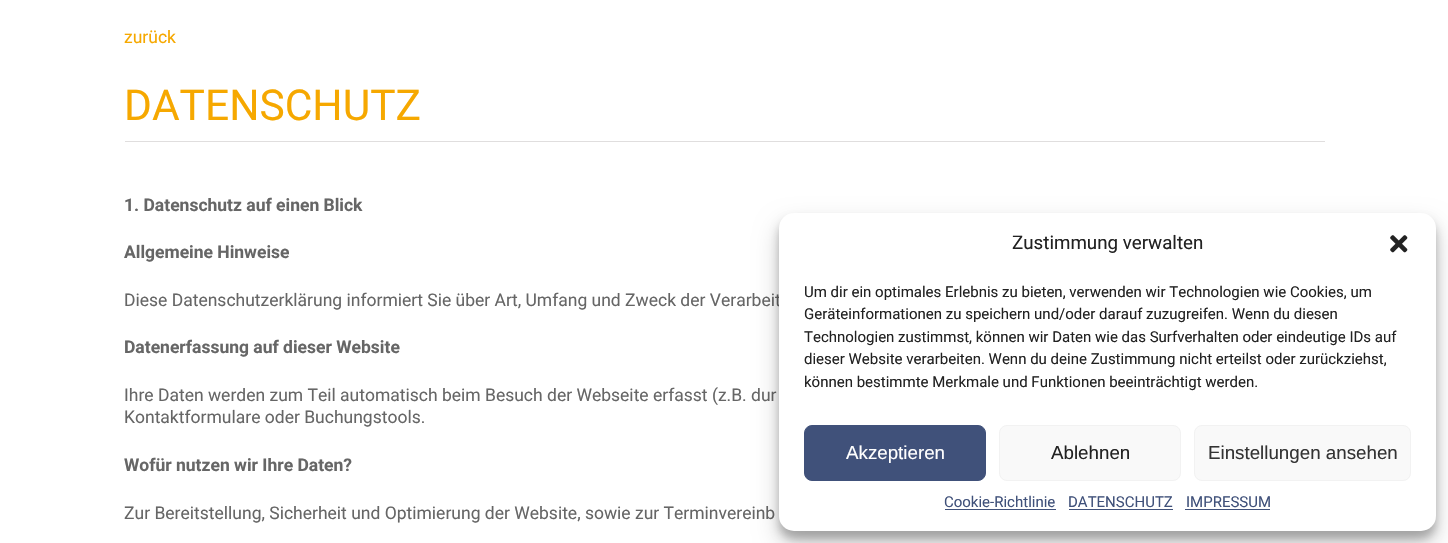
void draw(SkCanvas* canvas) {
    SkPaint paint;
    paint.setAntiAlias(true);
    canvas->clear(0xFFFFFFFF);
    SkFont font1(fontMgr->matchFamilyStyle("Roboto", SkFontStyle::Normal()), 17.5f);
    font1.setSubpixel(true);
    paint.setColor(0xFFF6A800);
    canvas->drawString("zurück", 124, 43, font1, paint);
    SkFont font2(fontMgr->matchFamilyStyle("Roboto", SkFontStyle::Normal()), 42.5f);
    font2.setSubpixel(true);
    canvas->drawString("DATENSCHUTZ", 124, 120, font2, paint);
    paint.setColor(0xFFE0DEDE);
    canvas->drawRect(SkRect::MakeXYWH(125, 141, 1200, 1), paint);
    SkFont font3(fontMgr->matchFamilyStyle("Roboto", SkFontStyle::Bold()), 17.5f);
    font3.setSubpixel(true);
    paint.setColor(0xFF666666);
    canvas->drawString("1. Datenschutz auf einen Blick", 124, 211, font3, paint);
    canvas->drawString("Allgemeine Hinweise", 124, 258, font3, paint);
    canvas->drawString("Diese Datenschutzerklärung informiert Sie über Art, Umfang und Zweck der Verarbeit", 124, 306, font1, paint);
    canvas->drawString("Datenerfassung auf dieser Website", 124, 353, font3, paint);
    canvas->drawString("Ihre Daten werden zum Teil automatisch beim Besuch der Webseite erfasst (z. B. dur", 124, 401, font1, paint);
    canvas->drawString("Kontaktformulare oder Buchungstools.", 124, 423, font1, paint);
    canvas->drawString("Wofür nutzen wir Ihre Daten?", 124, 471, font3, paint);
    canvas->drawString("Zur Bereitstellung, Sicherheit und Optimierung der Website, sowie zur Terminvereinb", 124, 519, font1, paint);
    paint.setColor(0x3B000000);
    paint.setMaskFilter(SkMaskFilter::MakeBlur(kNormal_SkBlurStyle, 4));
    canvas->drawRoundRect(SkRect::MakeXYWH(779, 220, 657, 319), 15, 15, paint);
    paint.setMaskFilter(nullptr);
    paint.setColor(0x30000000);
    paint.setMaskFilter(SkMaskFilter::MakeBlur(kNormal_SkBlurStyle, 12.5f));
    canvas->drawRoundRect(SkRect::MakeXYWH(779, 225, 657, 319), 15, 15, paint);
    paint.setMaskFilter(nullptr);
    paint.setColor(0xFFFFFFFF);
    canvas->drawRoundRect(SkRect::MakeXYWH(779, 213, 657, 318), 15, 15, paint);
    SkFont font4(fontMgr->matchFamilyStyle("Roboto", SkFontStyle::Normal()), 18.75f);
    font4.setSubpixel(true);
    paint.setColor(0xFF222222);
    canvas->drawString("Zustimmung verwalten", 1012, 249, font4, paint);
    canvas->drawImageRect(SkImages::DeferredFromEncodedData(SkData::MakeFromFileName("img1.png")), SkRect::MakeXYWH(1390, 235, 18, 18), SkSamplingOptions());
    SkFont font5(fontMgr->matchFamilyStyle("Roboto", SkFontStyle::Normal()), 15);
    font5.setSubpixel(true);
    canvas->drawString("Um dir ein optimales Erlebnis zu bieten, verwenden wir Technologien wie Cookies, um", 804, 297, font5, paint);
    canvas->drawString("Geräteinformationen zu speichern und/oder darauf zuzugreifen. Wenn du diesen", 804, 319, font5, paint);
    canvas->drawString("Technologien zustimmst, können wir Daten wie das Surfverhalten oder eindeutige IDs auf", 804, 342, font5, paint);
    canvas->drawString("dieser Website verarbeiten. Wenn du deine Zustimmung nicht erteilst oder zurückziehst,", 804, 364, font5, paint);
    canvas->drawString("können bestimmte Merkmale und Funktionen beeinträchtigt werden.", 804, 387, font5, paint);
    paint.setColor(0xFF40517A);
    canvas->drawRoundRect(SkRect::MakeXYWH(804.5f, 425.5f, 181, 55), 7.5f, 7.5f, paint);
    paint.setStyle(SkPaint::kStroke_Style);
    paint.setStrokeWidth(1);
    canvas->drawRoundRect(SkRect::MakeXYWH(804.5f, 425.5f, 181, 55), 7.5f, 7.5f, paint);
    SkFont font6(fontMgr->matchFamilyStyle("Liberation Sans", SkFontStyle::Normal()), 18.75f);
    font6.setSubpixel(true);
    paint.setStyle(SkPaint::kFill_Style);
    paint.setColor(0xFFFFFFFF);
    canvas->drawString("Akzeptieren", 846, 459, font6, paint);
    paint.setColor(0xFFF9F9F9);
    canvas->drawRoundRect(SkRect::MakeXYWH(999.5f, 425.5f, 181, 55), 7.5f, 7.5f, paint);
    paint.setStyle(SkPaint::kStroke_Style);
    paint.setColor(0xFFF2F2F2);
    canvas->drawRoundRect(SkRect::MakeXYWH(999.5f, 425.5f, 181, 55), 7.5f, 7.5f, paint);
    paint.setStyle(SkPaint::kFill_Style);
    paint.setColor(0xFF222222);
    canvas->drawString("Ablehnen", 1051, 459, font6, paint);
    paint.setColor(0xFFF9F9F9);
    canvas->drawRoundRect(SkRect::MakeXYWH(1194.5f, 425.5f, 216, 55), 7.5f, 7.5f, paint);
    paint.setStyle(SkPaint::kStroke_Style);
    paint.setColor(0xFFF2F2F2);
    canvas->drawRoundRect(SkRect::MakeXYWH(1194.5f, 425.5f, 216, 55), 7.5f, 7.5f, paint);
    paint.setStyle(SkPaint::kFill_Style);
    paint.setColor(0xFF333333);
    canvas->drawString("Einstellungen ansehen", 1208, 459, font6, paint);
    paint.setColor(0xFF40517A);
    canvas->drawString("Cookie-Richtlinie", 944, 507, font5, paint);
    canvas->drawRect(SkRect::MakeXYWH(945, 509, 111, 1), paint);
    canvas->drawString("DATENSCHUTZ", 1068, 507, font5, paint);
    canvas->drawRect(SkRect::MakeXYWH(1069, 509, 104, 1), paint);
    canvas->drawString("IMPRESSUM", 1186, 507, font5, paint);
    canvas->drawRect(SkRect::MakeXYWH(1185, 509, 85, 1), paint);
}
